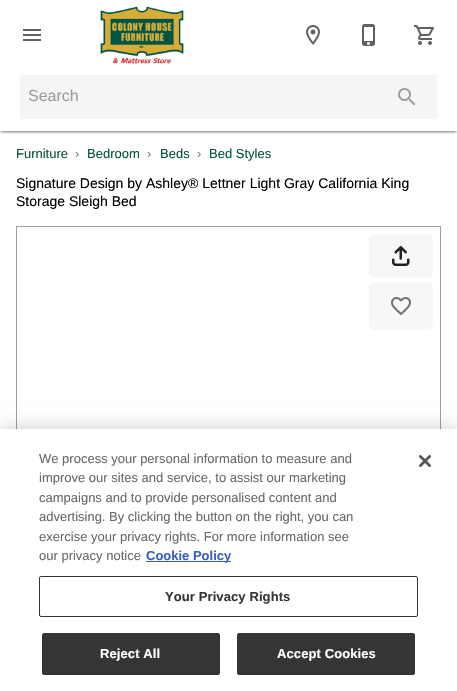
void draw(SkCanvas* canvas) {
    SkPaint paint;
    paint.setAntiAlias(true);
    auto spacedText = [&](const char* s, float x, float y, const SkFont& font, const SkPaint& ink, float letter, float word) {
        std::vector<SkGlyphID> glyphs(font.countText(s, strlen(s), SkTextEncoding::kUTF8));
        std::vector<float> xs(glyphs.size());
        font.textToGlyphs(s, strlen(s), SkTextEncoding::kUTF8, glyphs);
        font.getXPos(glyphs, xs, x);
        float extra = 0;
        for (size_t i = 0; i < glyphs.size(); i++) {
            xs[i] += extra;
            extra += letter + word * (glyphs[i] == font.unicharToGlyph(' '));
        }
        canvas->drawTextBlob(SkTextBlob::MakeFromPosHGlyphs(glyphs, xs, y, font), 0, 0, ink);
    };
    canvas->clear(0xFFFFFFFF);
    canvas->save();
    canvas->clipRect(SkRect::MakeXYWH(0, 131, 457, 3));
    paint.setColor(0x1F000000);
    paint.setMaskFilter(SkMaskFilter::MakeBlur(kNormal_SkBlurStyle, 2.5f));
    canvas->drawRect(SkRect::MakeXYWH(0, 0, 457, 132), paint);
    paint.setMaskFilter(nullptr);
    paint.setColor(0x24000000);
    paint.setMaskFilter(SkMaskFilter::MakeBlur(kNormal_SkBlurStyle, 1));
    canvas->drawRect(SkRect::MakeXYWH(0, 1, 457, 132), paint);
    paint.setMaskFilter(nullptr);
    canvas->restore();
    canvas->save();
    canvas->clipRect(SkRect::MakeXYWH(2, 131, 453, 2));
    paint.setColor(0x33000000);
    paint.setMaskFilter(SkMaskFilter::MakeBlur(kNormal_SkBlurStyle, 0.5f));
    canvas->drawRect(SkRect::MakeXYWH(2, 4, 453, 128), paint);
    paint.setMaskFilter(nullptr);
    canvas->restore();
    canvas->drawImageRect(SkImages::DeferredFromEncodedData(SkData::MakeFromFileName("img1.png")), SkRect::MakeXYWH(23, 29, 18, 12), SkSamplingOptions());
    canvas->drawImageRect(SkImages::DeferredFromEncodedData(SkData::MakeFromFileName("img2.png")), SkRect::MakeXYWH(100, 6, 84, 58), SkSamplingOptions());
    canvas->drawImageRect(SkImages::DeferredFromEncodedData(SkData::MakeFromFileName("img3.png")), SkRect::MakeXYWH(306, 25, 14, 20), SkSamplingOptions());
    canvas->drawImageRect(SkImages::DeferredFromEncodedData(SkData::MakeFromFileName("img4.png")), SkRect::MakeXYWH(362, 24, 13, 22), SkSamplingOptions());
    canvas->drawImageRect(SkImages::DeferredFromEncodedData(SkData::MakeFromFileName("img5.png")), SkRect::MakeXYWH(414, 25, 20, 20), SkSamplingOptions());
    paint.setColor(0xFFF5F5F5);
    canvas->drawRect(SkRect::MakeXYWH(20, 75, 417, 44), paint);
    SkFont font1(fontMgr->matchFamilyStyle("Liberation Sans", SkFontStyle::Normal()), 16);
    font1.setSubpixel(true);
    paint.setColor(0xFF9C9C9C);
    canvas->drawString("Search", 28, 101, font1, paint);
    canvas->drawImageRect(SkImages::DeferredFromEncodedData(SkData::MakeFromFileName("img6.png")), SkRect::MakeXYWH(398, 88, 18, 18), SkSamplingOptions());
    SkFont font2(fontMgr->matchFamilyStyle("Liberation Sans", SkFontStyle::Normal()), 13);
    font2.setSubpixel(true);
    paint.setColor(0xFF03553F);
    canvas->drawString("Furniture", 16, 158, font2, paint);
    paint.setColor(0xFF757575);
    canvas->drawString("›", 75, 158, font2, paint);
    paint.setColor(0xFF03553F);
    canvas->drawString("Bedroom", 87, 158, font2, paint);
    paint.setColor(0xFF757575);
    canvas->drawString("›", 147, 158, font2, paint);
    paint.setColor(0xFF03553F);
    canvas->drawString("Beds", 160, 158, font2, paint);
    paint.setColor(0xFF757575);
    canvas->drawString("›", 197, 158, font2, paint);
    paint.setColor(0xFF03553F);
    canvas->drawString("Bed Styles", 209, 158, font2, paint);
    SkFont font3(fontMgr->matchFamilyStyle("Liberation Sans", SkFontStyle::Normal()), 14);
    font3.setSubpixel(true);
    paint.setColor(0xFF000000);
    canvas->drawString("Signature Design by Ashley® Lettner Light Gray California King", 16, 188, font3, paint);
    canvas->drawString("Storage Sleigh Bed", 16, 206, font3, paint);
    paint.setStyle(SkPaint::kStroke_Style);
    paint.setStrokeWidth(1);
    paint.setColor(0xFF9E9E9E);
    canvas->drawRect(SkRect::MakeXYWH(16.5f, 226.5f, 424, 319), paint);
    paint.setStyle(SkPaint::kFill_Style);
    paint.setColor(0xFFF7F7F7);
    canvas->drawRoundRect(SkRect::MakeXYWH(369, 234, 64, 44), 6, 6, paint);
    canvas->drawImageRect(SkImages::DeferredFromEncodedData(SkData::MakeFromFileName("img7.png")), SkRect::MakeXYWH(392, 246, 18, 20), SkSamplingOptions());
    canvas->drawRoundRect(SkRect::MakeXYWH(369, 282, 64, 48), 6, 6, paint);
    canvas->drawImageRect(SkImages::DeferredFromEncodedData(SkData::MakeFromFileName("img8.png")), SkRect::MakeXYWH(391, 297, 20, 19), SkSamplingOptions());
    paint.setColor(0x33000000);
    paint.setMaskFilter(SkMaskFilter::MakeBlur(kNormal_SkBlurStyle, 9));
    canvas->drawRect(SkRect::MakeXYWH(0, 429, 457, 262), paint);
    paint.setMaskFilter(nullptr);
    paint.setColor(0xFFFFFFFF);
    canvas->drawRect(SkRect::MakeXYWH(0, 429, 457, 262), paint);
    paint.setColor(0xFF696969);
    canvas->drawString("We process your personal information to measure and", 39, 463, font2, paint);
    canvas->drawString("improve our sites and service, to assist our marketing", 39, 482, font2, paint);
    canvas->drawString("campaigns and to provide personalised content and", 39, 502, font2, paint);
    canvas->drawString("advertising. By clicking the button on the right, you can", 39, 521, font2, paint);
    canvas->drawString("exercise your privacy rights. For more information see", 39, 541, font2, paint);
    canvas->drawString("our privacy notice", 39, 560, font2, paint);
    paint.setColor(0xFF3860BE);
    canvas->drawRect(SkRect::MakeXYWH(146, 561, 85, 1), paint);
    SkFont font4(fontMgr->matchFamilyStyle("Liberation Sans", SkFontStyle::Bold()), 13);
    font4.setSubpixel(true);
    canvas->drawString("Cookie Policy", 146, 560, font4, paint);
    paint.setStyle(SkPaint::kStroke_Style);
    paint.setColor(0xFF353535);
    canvas->drawRoundRect(SkRect::MakeXYWH(39.5f, 576.5f, 378, 40), 1.5f, 1.5f, paint);
    paint.setStyle(SkPaint::kFill_Style);
    spacedText("Your Privacy Rights", 165, 601, font4, paint, 0.1f, 0);
    canvas->drawRoundRect(SkRect::MakeXYWH(42.5f, 633.5f, 177, 41), 1.5f, 1.5f, paint);
    paint.setStyle(SkPaint::kStroke_Style);
    canvas->drawRoundRect(SkRect::MakeXYWH(42.5f, 633.5f, 177, 41), 1.5f, 1.5f, paint);
    paint.setStyle(SkPaint::kFill_Style);
    paint.setColor(0xFFFFFFFF);
    spacedText("Reject All", 100, 658, font4, paint, 0.1f, 0);
    paint.setColor(0xFF353535);
    canvas->drawRoundRect(SkRect::MakeXYWH(237.5f, 633.5f, 177, 41), 1.5f, 1.5f, paint);
    paint.setStyle(SkPaint::kStroke_Style);
    canvas->drawRoundRect(SkRect::MakeXYWH(237.5f, 633.5f, 177, 41), 1.5f, 1.5f, paint);
    paint.setStyle(SkPaint::kFill_Style);
    paint.setColor(0xFFFFFFFF);
    spacedText("Accept Cookies", 277, 658, font4, paint, 0.1f, 0);
    canvas->drawImageRect(SkImages::DeferredFromEncodedData(SkData::MakeFromFileName("img9.png")), SkRect::MakeXYWH(419, 455, 12, 12), SkSamplingOptions());
}
